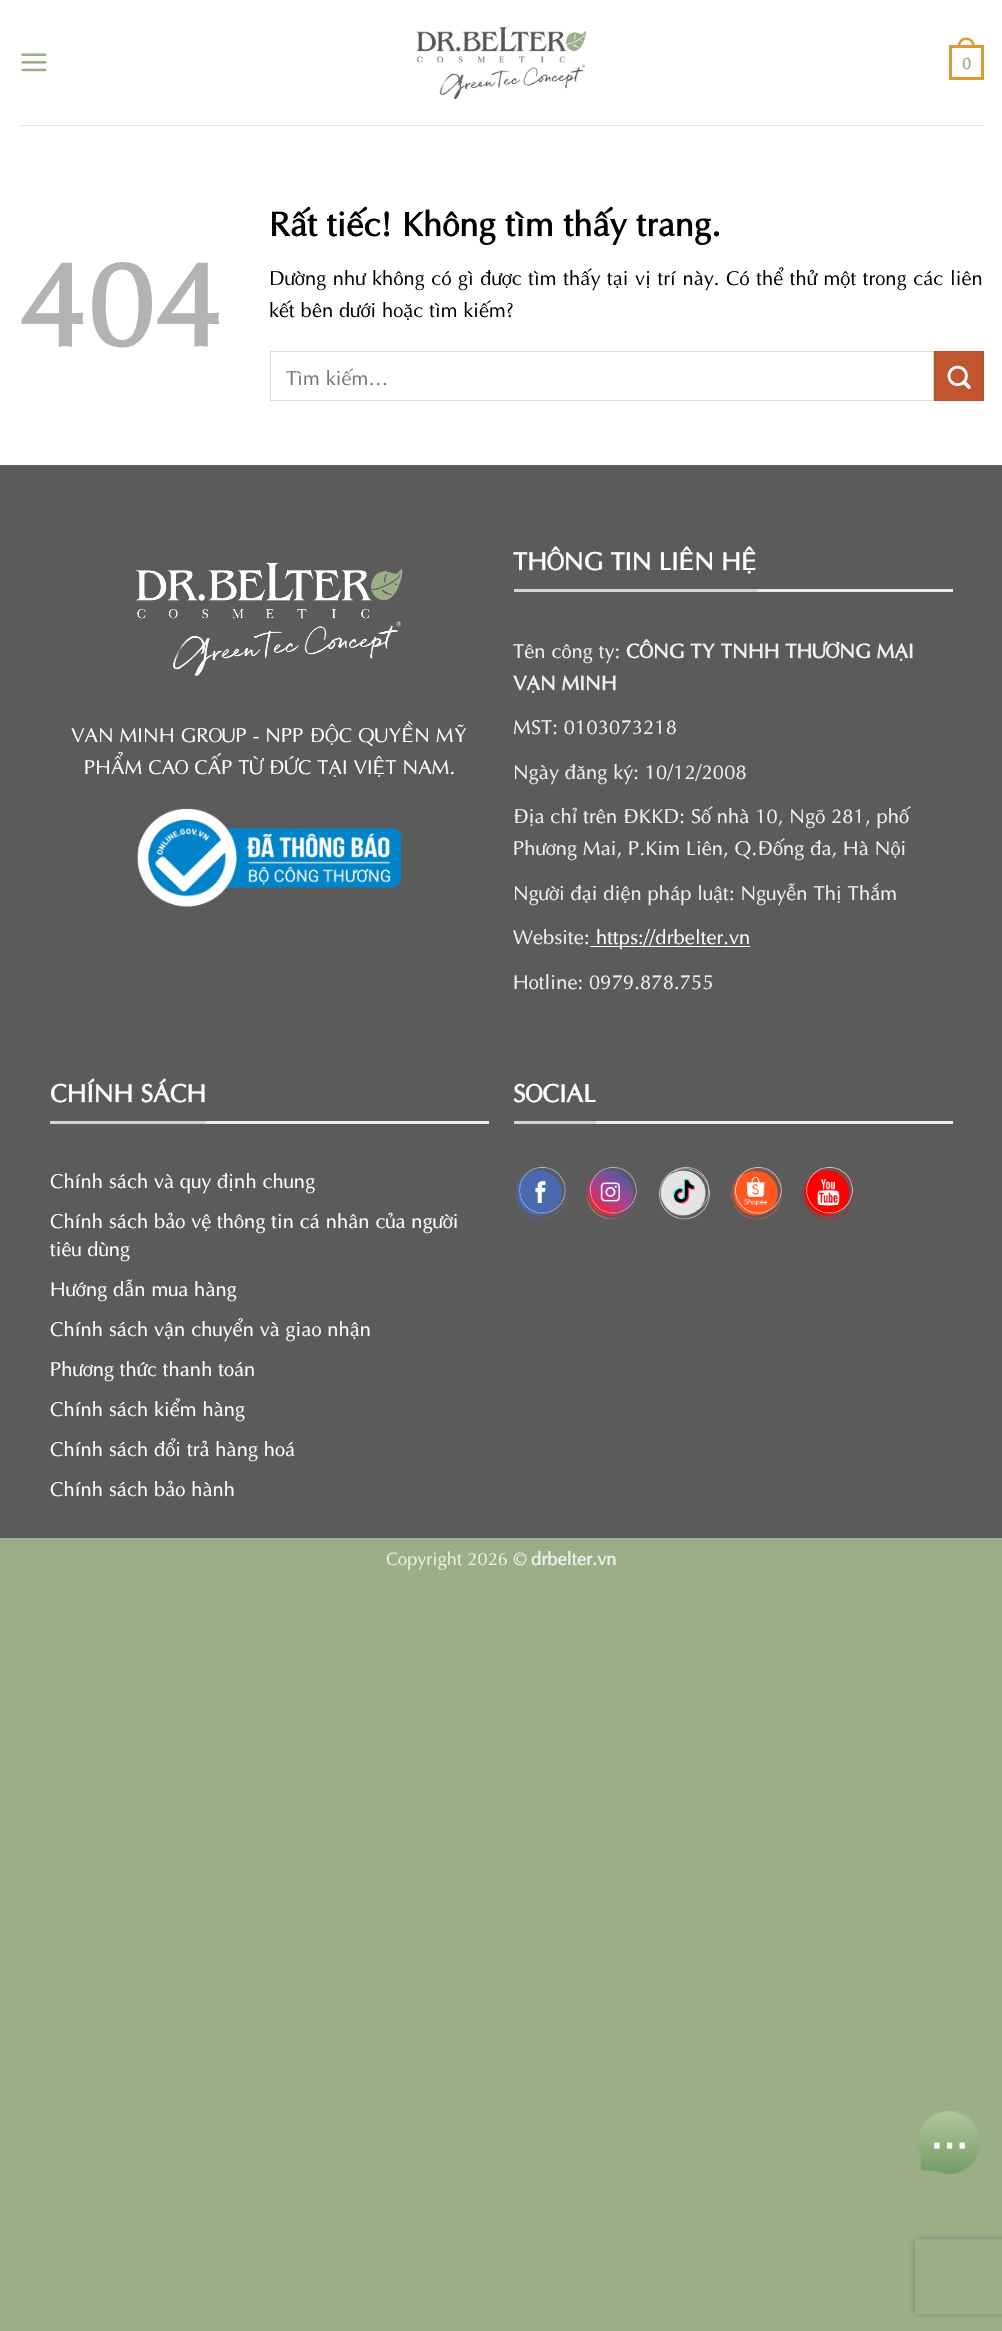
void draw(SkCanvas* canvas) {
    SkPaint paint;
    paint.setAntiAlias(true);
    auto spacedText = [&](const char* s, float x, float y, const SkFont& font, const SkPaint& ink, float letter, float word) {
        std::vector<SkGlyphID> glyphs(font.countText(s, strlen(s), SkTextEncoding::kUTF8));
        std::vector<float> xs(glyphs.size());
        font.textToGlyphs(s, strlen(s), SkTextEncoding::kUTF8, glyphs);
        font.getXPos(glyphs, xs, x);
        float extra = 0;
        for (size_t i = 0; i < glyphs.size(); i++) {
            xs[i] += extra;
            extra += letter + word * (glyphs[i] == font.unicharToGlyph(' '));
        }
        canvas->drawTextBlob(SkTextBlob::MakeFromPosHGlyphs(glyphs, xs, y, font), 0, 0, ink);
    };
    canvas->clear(0xFF9CAE88);
    paint.setColor(0xFFFFFFFF);
    canvas->drawRect(SkRect::MakeXYWH(0, 0, 1002, 465), paint);
    canvas->drawImageRect(SkImages::DeferredFromEncodedData(SkData::MakeFromFileName("img1.png")), SkRect::MakeXYWH(21, 53, 26, 19), SkSamplingOptions());
    canvas->drawImageRect(SkImages::DeferredFromEncodedData(SkData::MakeFromFileName("img2.png")), SkRect::MakeXYWH(416, 27, 170, 73), SkSamplingOptions());
    paint.setStyle(SkPaint::kStroke_Style);
    paint.setStrokeWidth(3);
    paint.setColor(0xFFDD9933);
    canvas->drawRect(SkRect::MakeXYWH(950.5f, 46.5f, 32, 32), paint);
    paint.setStyle(SkPaint::kFill_Style);
    canvas->drawPath(SkPathBuilder(SkPathFillType::kEvenOdd).moveTo(966, 37.5f).cubicTo(972, 37.5f, 975, 42, 975, 47.5f).lineTo(957.5f, 47.5f).cubicTo(957.5f, 42, 960.5f, 37.5f, 966, 37.5f).close().moveTo(966, 40).cubicTo(970.5f, 40, 972.5f, 43.5f, 972.5f, 47.5f).lineTo(960, 47.5f).cubicTo(960, 43.5f, 962, 40, 966, 40).close().detach(), paint);
    SkFont font1(fontMgr->matchFamilyStyle("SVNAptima", SkFontStyle::Bold()), 16);
    font1.setSubpixel(true);
    paint.setColor(0xFF9CAE88);
    canvas->drawString("0", 962, 69, font1, paint);
    paint.setColor(0xFFE6E6E6);
    canvas->drawRect(SkRect::MakeXYWH(19, 125, 965, 1), paint);
    SkFont font2(fontMgr->matchFamilyStyle("SVNAptima", SkFontStyle::Bold()), 120);
    font2.setSubpixel(true);
    paint.setColor(0xFFB3B3B3);
    canvas->drawString("404", 19, 346, font2, paint);
    SkFont font3(fontMgr->matchFamilyStyle("SVNAptima", SkFontStyle::Bold()), 34);
    font3.setSubpixel(true);
    paint.setColor(0xFF000000);
    canvas->drawString("Rất tiếc! Không tìm thấy trang.", 269, 236, font3, paint);
    SkFont font4(fontMgr->matchFamilyStyle("SVNAptima", SkFontStyle::Normal()), 20);
    font4.setSubpixel(true);
    spacedText("Dường như không có gì được tìm thấy tại vị trí này. Có thể thử một trong các liên", 269, 285, font4, paint, 0, 0.8f);
    canvas->drawString("kết bên dưới hoặc tìm kiếm?", 269, 317, font4, paint);
    paint.setStyle(SkPaint::kStroke_Style);
    paint.setStrokeWidth(1);
    paint.setColor(0xFFDDDDDD);
    canvas->drawRect(SkRect::MakeXYWH(270.5f, 351.5f, 663, 49), paint);
    paint.setStyle(SkPaint::kFill_Style);
    paint.setColor(0xFF757575);
    canvas->drawString("Tìm kiếm…", 286, 385, font4, paint);
    paint.setColor(0xFFC05530);
    canvas->drawRect(SkRect::MakeXYWH(934.5f, 351.5f, 49, 49), paint);
    paint.setStyle(SkPaint::kStroke_Style);
    paint.setColor(0xFFB6512E);
    canvas->drawRect(SkRect::MakeXYWH(934.5f, 351.5f, 49, 49), paint);
    canvas->drawImageRect(SkImages::DeferredFromEncodedData(SkData::MakeFromFileName("img3.png")), SkRect::MakeXYWH(947, 365, 24, 24), SkSamplingOptions());
    paint.setStyle(SkPaint::kFill_Style);
    paint.setColor(0xFF5B5B5B);
    canvas->drawRect(SkRect::MakeXYWH(0, 465, 1002, 1073), paint);
    canvas->drawImageRect(SkImages::DeferredFromEncodedData(SkData::MakeFromFileName("img4.png")), SkRect::MakeXYWH(136, 562, 267, 114), SkSamplingOptions());
    paint.setColor(0xFFFFFFFF);
    canvas->drawString("VAN MINH GROUP - NPP ĐỘC QUYỀN MỸ", 71, 742, font4, paint);
    canvas->drawString("PHẨM CAO CẤP TỪ ĐỨC TẠI VIỆT NAM.", 84, 774, font4, paint);
    canvas->drawImageRect(SkImages::DeferredFromEncodedData(SkData::MakeFromFileName("img5.png")), SkRect::MakeXYWH(137, 808, 265, 99), SkSamplingOptions());
    paint.setColor(0xFFECECEC);
    canvas->drawRect(SkRect::MakeXYWH(758, 589, 195, 3), paint);
    paint.setColor(0xFFD4D4D4);
    canvas->drawRect(SkRect::MakeXYWH(514, 589, 244, 3), paint);
    SkFont font5(fontMgr->matchFamilyStyle("SVNAptima", SkFontStyle::Bold()), 25);
    font5.setSubpixel(true);
    paint.setColor(0xFFFFFFFF);
    canvas->drawString("THÔNG TIN LIÊN HỆ", 513, 570, font5, paint);
    paint.setColor(0xFFF1F1F1);
    canvas->drawString("Tên công ty:", 513, 658, font4, paint);
    SkFont font6(fontMgr->matchFamilyStyle("SVNAptima", SkFontStyle::Bold()), 20);
    font6.setSubpixel(true);
    canvas->drawString("CÔNG TY TNHH THƯƠNG MẠI", 626, 658, font6, paint);
    canvas->drawString("VẠN MINH", 513, 690, font6, paint);
    canvas->drawString("MST: 0103073218", 513, 734, font4, paint);
    canvas->drawString("Ngày đăng ký: 10/12/2008", 513, 779, font4, paint);
    canvas->drawString("Địa chỉ trên ĐKKD: Số nhà 10, Ngõ 281, phố", 513, 823, font4, paint);
    canvas->drawString("Phương Mai, P.Kim Liên, Q.Đống đa, Hà Nội", 513, 855, font4, paint);
    canvas->drawString("Người đại diện pháp luật: Nguyễn Thị Thắm", 513, 900, font4, paint);
    canvas->drawString("Website", 513, 944, font4, paint);
    paint.setColor(0xFFFFFFFF);
    canvas->drawString(":", 584, 944, font4, paint);
    canvas->drawRect(SkRect::MakeXYWH(590, 946, 160, 1), paint);
    canvas->drawString("https://drbelter.vn", 596, 944, font4, paint);
    paint.setColor(0xFFF1F1F1);
    canvas->drawString("Hotline: 0979.878.755", 513, 989, font4, paint);
    paint.setColor(0xFFECECEC);
    canvas->drawRect(SkRect::MakeXYWH(206, 1121, 283, 3), paint);
    paint.setColor(0xFFD4D4D4);
    canvas->drawRect(SkRect::MakeXYWH(50, 1121, 156, 3), paint);
    paint.setColor(0xFFFFFFFF);
    canvas->drawString("CHÍNH SÁCH", 50, 1102, font5, paint);
    canvas->drawString("Chính sách và quy định chung", 50, 1188, font4, paint);
    canvas->drawString("Chính sách bảo vệ thông tin cá nhân của người", 50, 1228, font4, paint);
    canvas->drawString("tiêu dùng", 50, 1256, font4, paint);
    canvas->drawString("Hướng dẫn mua hàng", 50, 1296, font4, paint);
    canvas->drawString("Chính sách vận chuyển và giao nhận", 50, 1336, font4, paint);
    canvas->drawString("Phương thức thanh toán", 50, 1376, font4, paint);
    canvas->drawString("Chính sách kiểm hàng", 50, 1416, font4, paint);
    canvas->drawString("Chính sách đổi trả hàng hoá", 50, 1456, font4, paint);
    canvas->drawString("Chính sách bảo hành", 50, 1496, font4, paint);
    paint.setColor(0xFFECECEC);
    canvas->drawRect(SkRect::MakeXYWH(596, 1121, 357, 3), paint);
    paint.setColor(0xFFD4D4D4);
    canvas->drawRect(SkRect::MakeXYWH(514, 1121, 82, 3), paint);
    paint.setColor(0xFFFFFFFF);
    canvas->drawString("SOCIAL", 513, 1102, font5, paint);
    canvas->drawImageRect(SkImages::DeferredFromEncodedData(SkData::MakeFromFileName("img6.png")), SkRect::MakeXYWH(515, 1166, 52, 54), SkSamplingOptions());
    canvas->drawImageRect(SkImages::DeferredFromEncodedData(SkData::MakeFromFileName("img7.png")), SkRect::MakeXYWH(586, 1166, 52, 54), SkSamplingOptions());
    canvas->drawImageRect(SkImages::DeferredFromEncodedData(SkData::MakeFromFileName("img8.png")), SkRect::MakeXYWH(659, 1166, 52, 54), SkSamplingOptions());
    canvas->drawImageRect(SkImages::DeferredFromEncodedData(SkData::MakeFromFileName("img9.png")), SkRect::MakeXYWH(731, 1167, 52, 53), SkSamplingOptions());
    canvas->drawImageRect(SkImages::DeferredFromEncodedData(SkData::MakeFromFileName("img10.png")), SkRect::MakeXYWH(802, 1167, 52, 53), SkSamplingOptions());
    SkFont font7(fontMgr->matchFamilyStyle("SVNAptima", SkFontStyle::Normal()), 18);
    font7.setSubpixel(true);
    paint.setColor(0xFFEBEFE7);
    canvas->drawString("Copyright 2026 ©", 386, 1565, font7, paint);
    SkFont font8(fontMgr->matchFamilyStyle("SVNAptima", SkFontStyle::Bold()), 18);
    font8.setSubpixel(true);
    canvas->drawString("drbelter.vn", 531, 1565, font8, paint);
    canvas->drawImageRect(SkImages::DeferredFromEncodedData(SkData::MakeFromFileName("img11.png")), SkRect::MakeXYWH(917, 2111, 63, 63), SkSamplingOptions());
    SkFont font9(fontMgr->matchFamilyStyle("DejaVu Sans", SkFontStyle::Bold()), 38);
    font9.setSubpixel(true);
    paint.setColor(0xFFFFFFFF);
    canvas->drawString("⋯", 930, 2158, font9, paint);
    canvas->save();
    canvas->clipPath(SkPathBuilder(SkPathFillType::kEvenOdd).moveTo(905, 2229).lineTo(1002, 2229).lineTo(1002, 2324).lineTo(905, 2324).close().moveTo(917.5f, 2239).lineTo(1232.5f, 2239).cubicTo(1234, 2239, 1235, 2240, 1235, 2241.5f).lineTo(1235, 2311.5f).cubicTo(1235, 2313, 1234, 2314, 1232.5f, 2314).lineTo(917.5f, 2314).cubicTo(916, 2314, 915, 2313, 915, 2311.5f).lineTo(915, 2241.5f).cubicTo(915, 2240, 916, 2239, 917.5f, 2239).close().detach(), true);
    paint.setColor(0xFF808080);
    paint.setMaskFilter(SkMaskFilter::MakeBlur(kNormal_SkBlurStyle, 3));
    canvas->drawRoundRect(SkRect::MakeXYWH(915, 2239, 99, 75), 2.5f, 2.5f, paint);
    paint.setMaskFilter(nullptr);
    canvas->restore();
}
